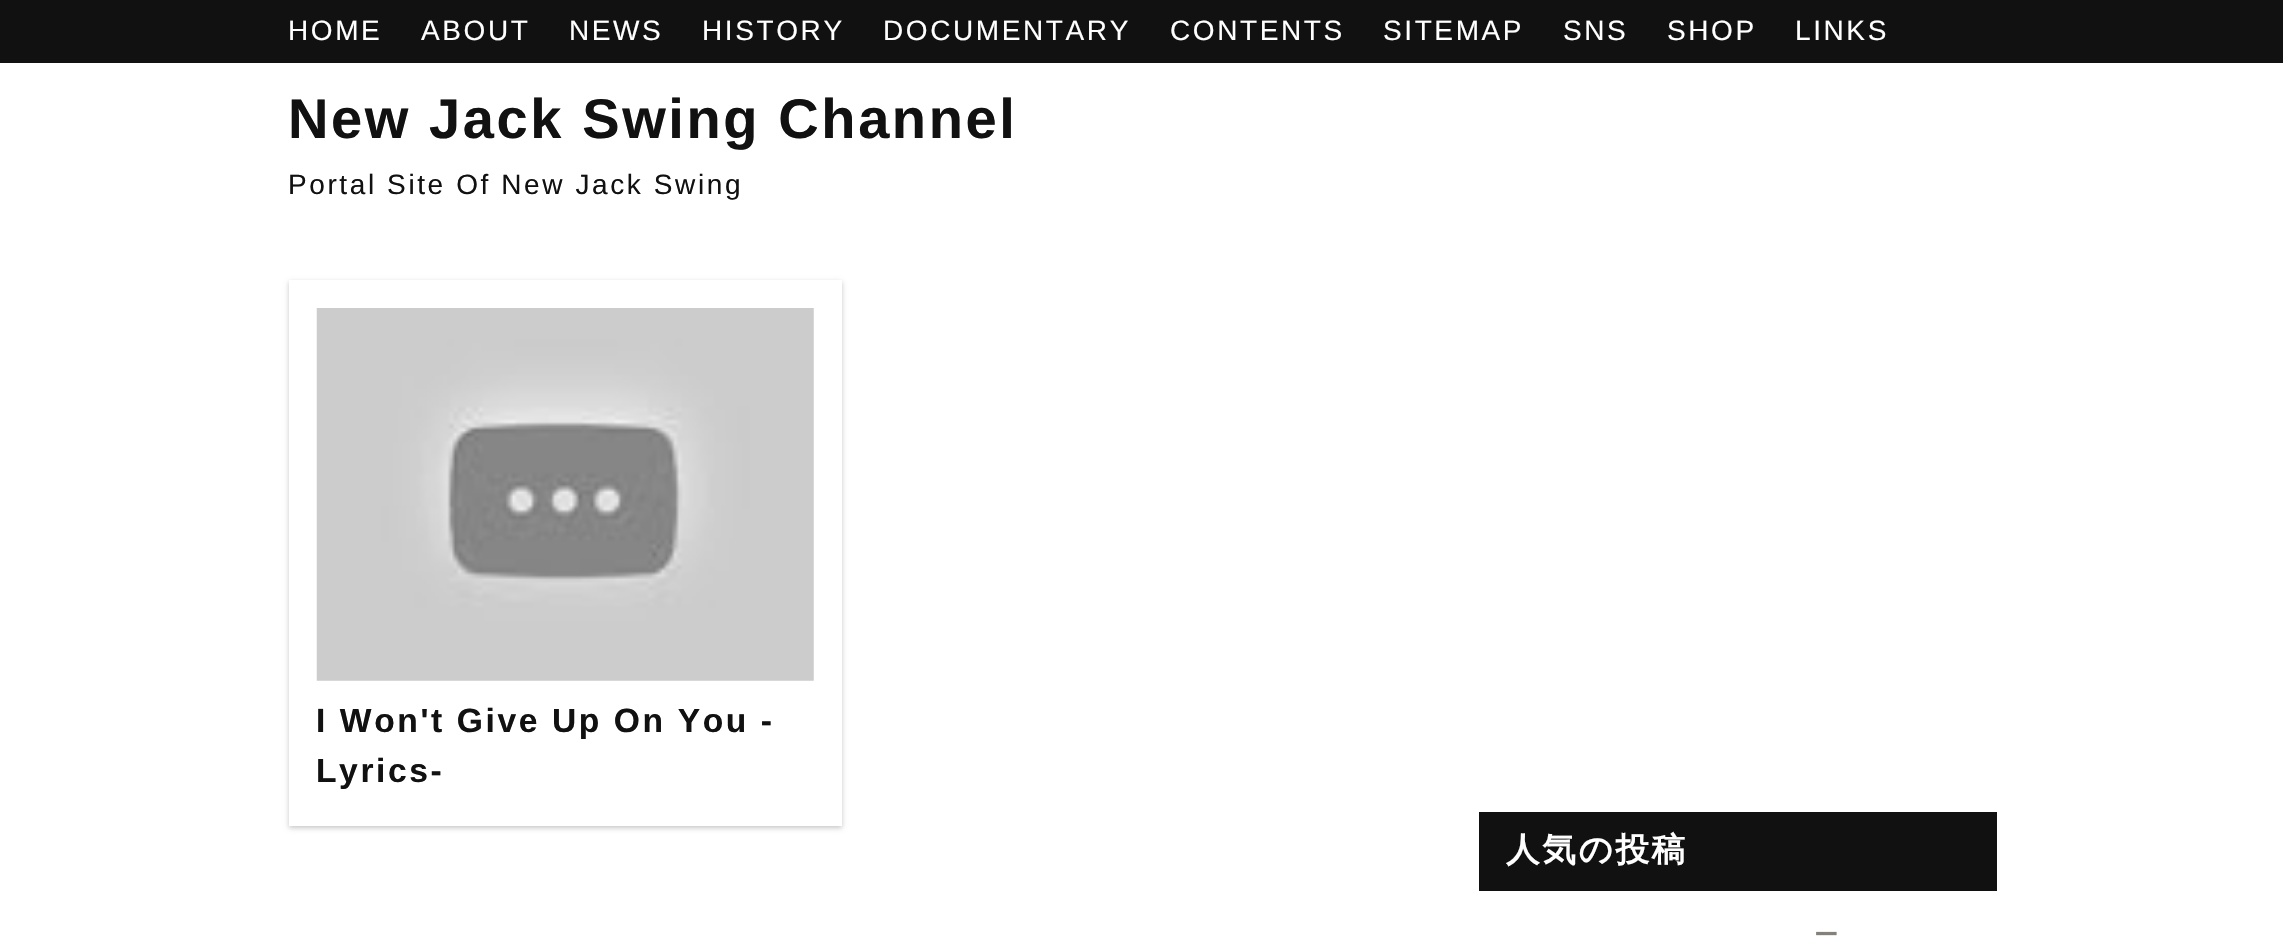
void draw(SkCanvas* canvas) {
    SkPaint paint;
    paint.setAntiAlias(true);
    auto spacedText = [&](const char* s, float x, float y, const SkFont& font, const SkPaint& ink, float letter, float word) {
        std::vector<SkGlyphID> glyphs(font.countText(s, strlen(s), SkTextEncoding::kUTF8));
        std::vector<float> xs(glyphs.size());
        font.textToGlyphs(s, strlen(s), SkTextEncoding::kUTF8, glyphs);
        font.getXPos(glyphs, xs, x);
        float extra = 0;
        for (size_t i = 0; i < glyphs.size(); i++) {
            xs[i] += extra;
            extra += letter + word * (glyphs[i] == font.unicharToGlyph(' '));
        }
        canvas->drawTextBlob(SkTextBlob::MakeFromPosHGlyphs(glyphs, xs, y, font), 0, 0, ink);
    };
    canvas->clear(0xFFFFFFFF);
    paint.setColor(0xFF111111);
    canvas->drawRect(SkRect::MakeXYWH(0, 0, 2283, 63), paint);
    SkFont font1(fontMgr->matchFamilyStyle("Liberation Sans", SkFontStyle::Normal()), 28);
    font1.setSubpixel(true);
    paint.setColor(0xFFFFFFFF);
    spacedText("HOME", 288, 40, font1, paint, 2.6f, 0);
    spacedText("ABOUT", 421, 40, font1, paint, 2.6f, 0);
    spacedText("NEWS", 569, 40, font1, paint, 2.6f, 0);
    spacedText("HISTORY", 702, 40, font1, paint, 2.6f, 0);
    spacedText("DOCUMENTARY", 883, 40, font1, paint, 2.6f, 0);
    spacedText("CONTENTS", 1170, 40, font1, paint, 2.6f, 0);
    spacedText("SITEMAP", 1383, 40, font1, paint, 2.6f, 0);
    spacedText("SNS", 1563, 40, font1, paint, 2.6f, 0);
    spacedText("SHOP", 1667, 40, font1, paint, 2.6f, 0);
    spacedText("LINKS", 1795, 40, font1, paint, 2.6f, 0);
    SkFont font2(fontMgr->matchFamilyStyle("Liberation Sans", SkFontStyle::Bold()), 56);
    font2.setSubpixel(true);
    paint.setColor(0xFF111111);
    spacedText("New Jack Swing Channel", 288, 138, font2, paint, 2.6f, 0);
    spacedText("Portal Site Of New Jack Swing", 288, 194, font1, paint, 2.6f, 0);
    paint.setColor(0x38000000);
    paint.setMaskFilter(SkMaskFilter::MakeBlur(kNormal_SkBlurStyle, 2.5f));
    canvas->drawRect(SkRect::MakeXYWH(289, 282, 553, 546), paint);
    paint.setMaskFilter(nullptr);
    paint.setColor(0xFFFFFFFF);
    canvas->drawRect(SkRect::MakeXYWH(289, 280, 553, 546), paint);
    canvas->drawImageRect(SkImages::DeferredFromEncodedData(SkData::MakeFromFileName("img1.png")), SkRect::MakeXYWH(316, 308, 498, 373), SkSamplingOptions());
    SkFont font3(fontMgr->matchFamilyStyle("Liberation Sans", SkFontStyle::Bold()), 33.6f);
    font3.setSubpixel(true);
    paint.setColor(0xFF111111);
    spacedText("I Won't Give Up On You -", 316, 732, font3, paint, 2.6f, 0);
    spacedText("Lyrics-", 316, 782, font3, paint, 2.6f, 0);
    canvas->drawRect(SkRect::MakeXYWH(1479, 812, 518, 79), paint);
    SkFont font4(fontMgr->matchFamilyStyle("WenQuanYi Zen Hei", SkFontStyle::Bold()), 33.6f);
    font4.setSubpixel(true);
    paint.setColor(0xFFFFFFFF);
    spacedText("人気の投稿", 1506, 861, font4, paint, 2.6f, 0);
    SkFont font5(fontMgr->matchFamilyStyle("WenQuanYi Zen Hei", SkFontStyle::Bold()), 24);
    font5.setSubpixel(true);
    paint.setColor(0xFF84817A);
    spacedText("ー", 1814, 943, font5, paint, 2.6f, 0);
}
